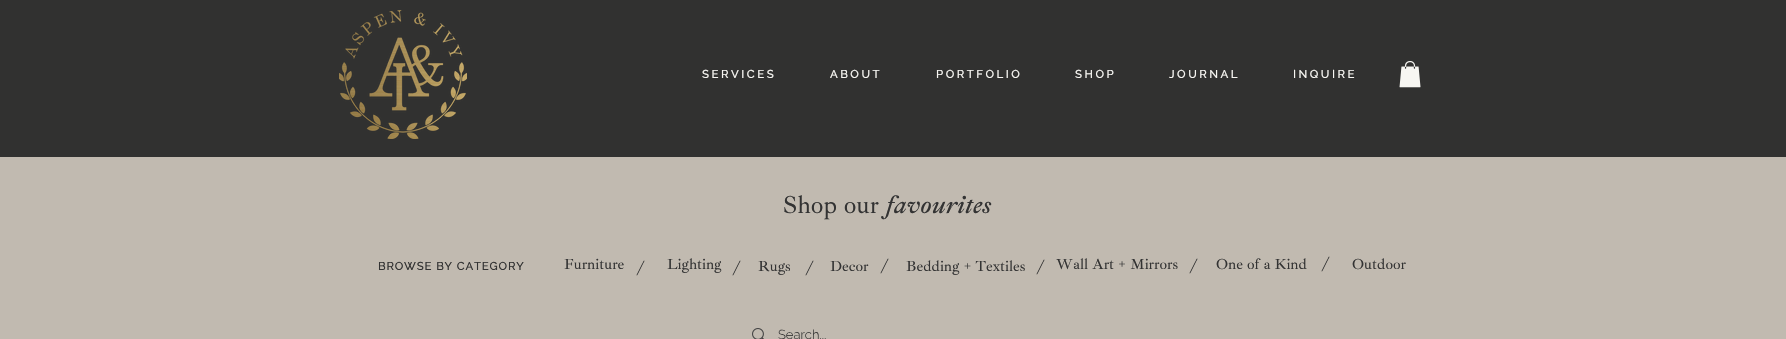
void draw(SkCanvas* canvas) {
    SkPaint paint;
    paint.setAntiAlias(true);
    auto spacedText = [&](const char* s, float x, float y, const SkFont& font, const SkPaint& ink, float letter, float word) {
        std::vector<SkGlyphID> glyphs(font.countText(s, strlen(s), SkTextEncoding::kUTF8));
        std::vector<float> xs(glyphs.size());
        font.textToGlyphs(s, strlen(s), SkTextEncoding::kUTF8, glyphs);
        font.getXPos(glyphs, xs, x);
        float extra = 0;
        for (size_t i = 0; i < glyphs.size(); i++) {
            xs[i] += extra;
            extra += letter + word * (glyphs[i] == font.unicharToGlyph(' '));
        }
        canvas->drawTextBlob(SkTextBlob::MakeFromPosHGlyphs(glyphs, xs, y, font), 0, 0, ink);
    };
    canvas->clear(0xFFC1BAB0);
    paint.setColor(0xFF313130);
    canvas->drawRect(SkRect::MakeXYWH(0, 0, 1786, 157), paint);
    canvas->drawImageRect(SkImages::DeferredFromEncodedData(SkData::MakeFromFileName("img1.png")), SkRect::MakeXYWH(339, 10, 128, 129), SkSamplingOptions());
    SkFont font1(fontMgr->matchFamilyStyle("Raleway", SkFontStyle::Bold()), 11);
    font1.setSubpixel(true);
    paint.setColor(0xFFF7F6F2);
    canvas->drawString("S E R V I C E S", 702, 78, font1, paint);
    canvas->drawString("A B O U T", 830, 78, font1, paint);
    canvas->drawString("P O R T F O L I O", 936, 78, font1, paint);
    canvas->drawString("S H O P", 1075, 78, font1, paint);
    canvas->drawString("J O U R N A L", 1169, 78, font1, paint);
    canvas->drawString("I N Q U I R E", 1293, 78, font1, paint);
    canvas->drawImageRect(SkImages::DeferredFromEncodedData(SkData::MakeFromFileName("img2.png")), SkRect::MakeXYWH(1399, 61, 22, 27), SkSamplingOptions());
    SkFont font2(fontMgr->matchFamilyStyle("Ibarra Real Nova", SkFontStyle::Normal()), 25);
    font2.setSubpixel(true);
    paint.setColor(0xFF333333);
    canvas->drawString("Shop our", 783, 213, font2, paint);
    SkFont font3(fontMgr->matchFamilyStyle("Ibarra Real Nova", SkFontStyle::Italic()), 25);
    font3.setSubpixel(true);
    canvas->drawString("favourites", 886, 213, font3, paint);
    spacedText("BROWSE BY CATEGORY", 378, 270, font1, paint, 1.1f, 0);
    SkFont font4(fontMgr->matchFamilyStyle("Ibarra Real Nova", SkFontStyle::Normal()), 15);
    font4.setSubpixel(true);
    canvas->drawString("Furniture", 564, 269, font4, paint);
    SkFont font5(fontMgr->matchFamilyStyle("Ibarra Real Nova", SkFontStyle::Normal()), 20);
    font5.setSubpixel(true);
    canvas->drawString("/", 636, 275, font5, paint);
    canvas->drawString("Lighting", 667, 269, font4, paint);
    canvas->drawString("/", 732, 275, font5, paint);
    canvas->drawString("Rugs", 758, 271, font4, paint);
    canvas->drawString("/", 805, 275, font5, paint);
    canvas->drawString("Decor", 830, 271, font4, paint);
    canvas->drawString("/", 880, 273, font5, paint);
    canvas->drawString("Bedding + Textiles", 906, 271, font4, paint);
    canvas->drawString("/", 1036, 274, font5, paint);
    canvas->drawString("Wall Art + Mirrors", 1056, 269, font4, paint);
    canvas->drawString("/", 1189, 273, font5, paint);
    canvas->drawString("One of a Kind", 1216, 269, font4, paint);
    canvas->drawString("/", 1321, 271, font5, paint);
    canvas->drawString("Outdoor", 1352, 269, font4, paint);
    canvas->drawImageRect(SkImages::DeferredFromEncodedData(SkData::MakeFromFileName("img3.png")), SkRect::MakeXYWH(752, 328, 12, 11), SkSamplingOptions());
    SkFont font6(fontMgr->matchFamilyStyle("Raleway", SkFontStyle(300, SkFontStyle::kNormal_Width, SkFontStyle::kUpright_Slant)), 13);
    font6.setSubpixel(true);
    canvas->drawString("Search...", 778, 339, font6, paint);
}
